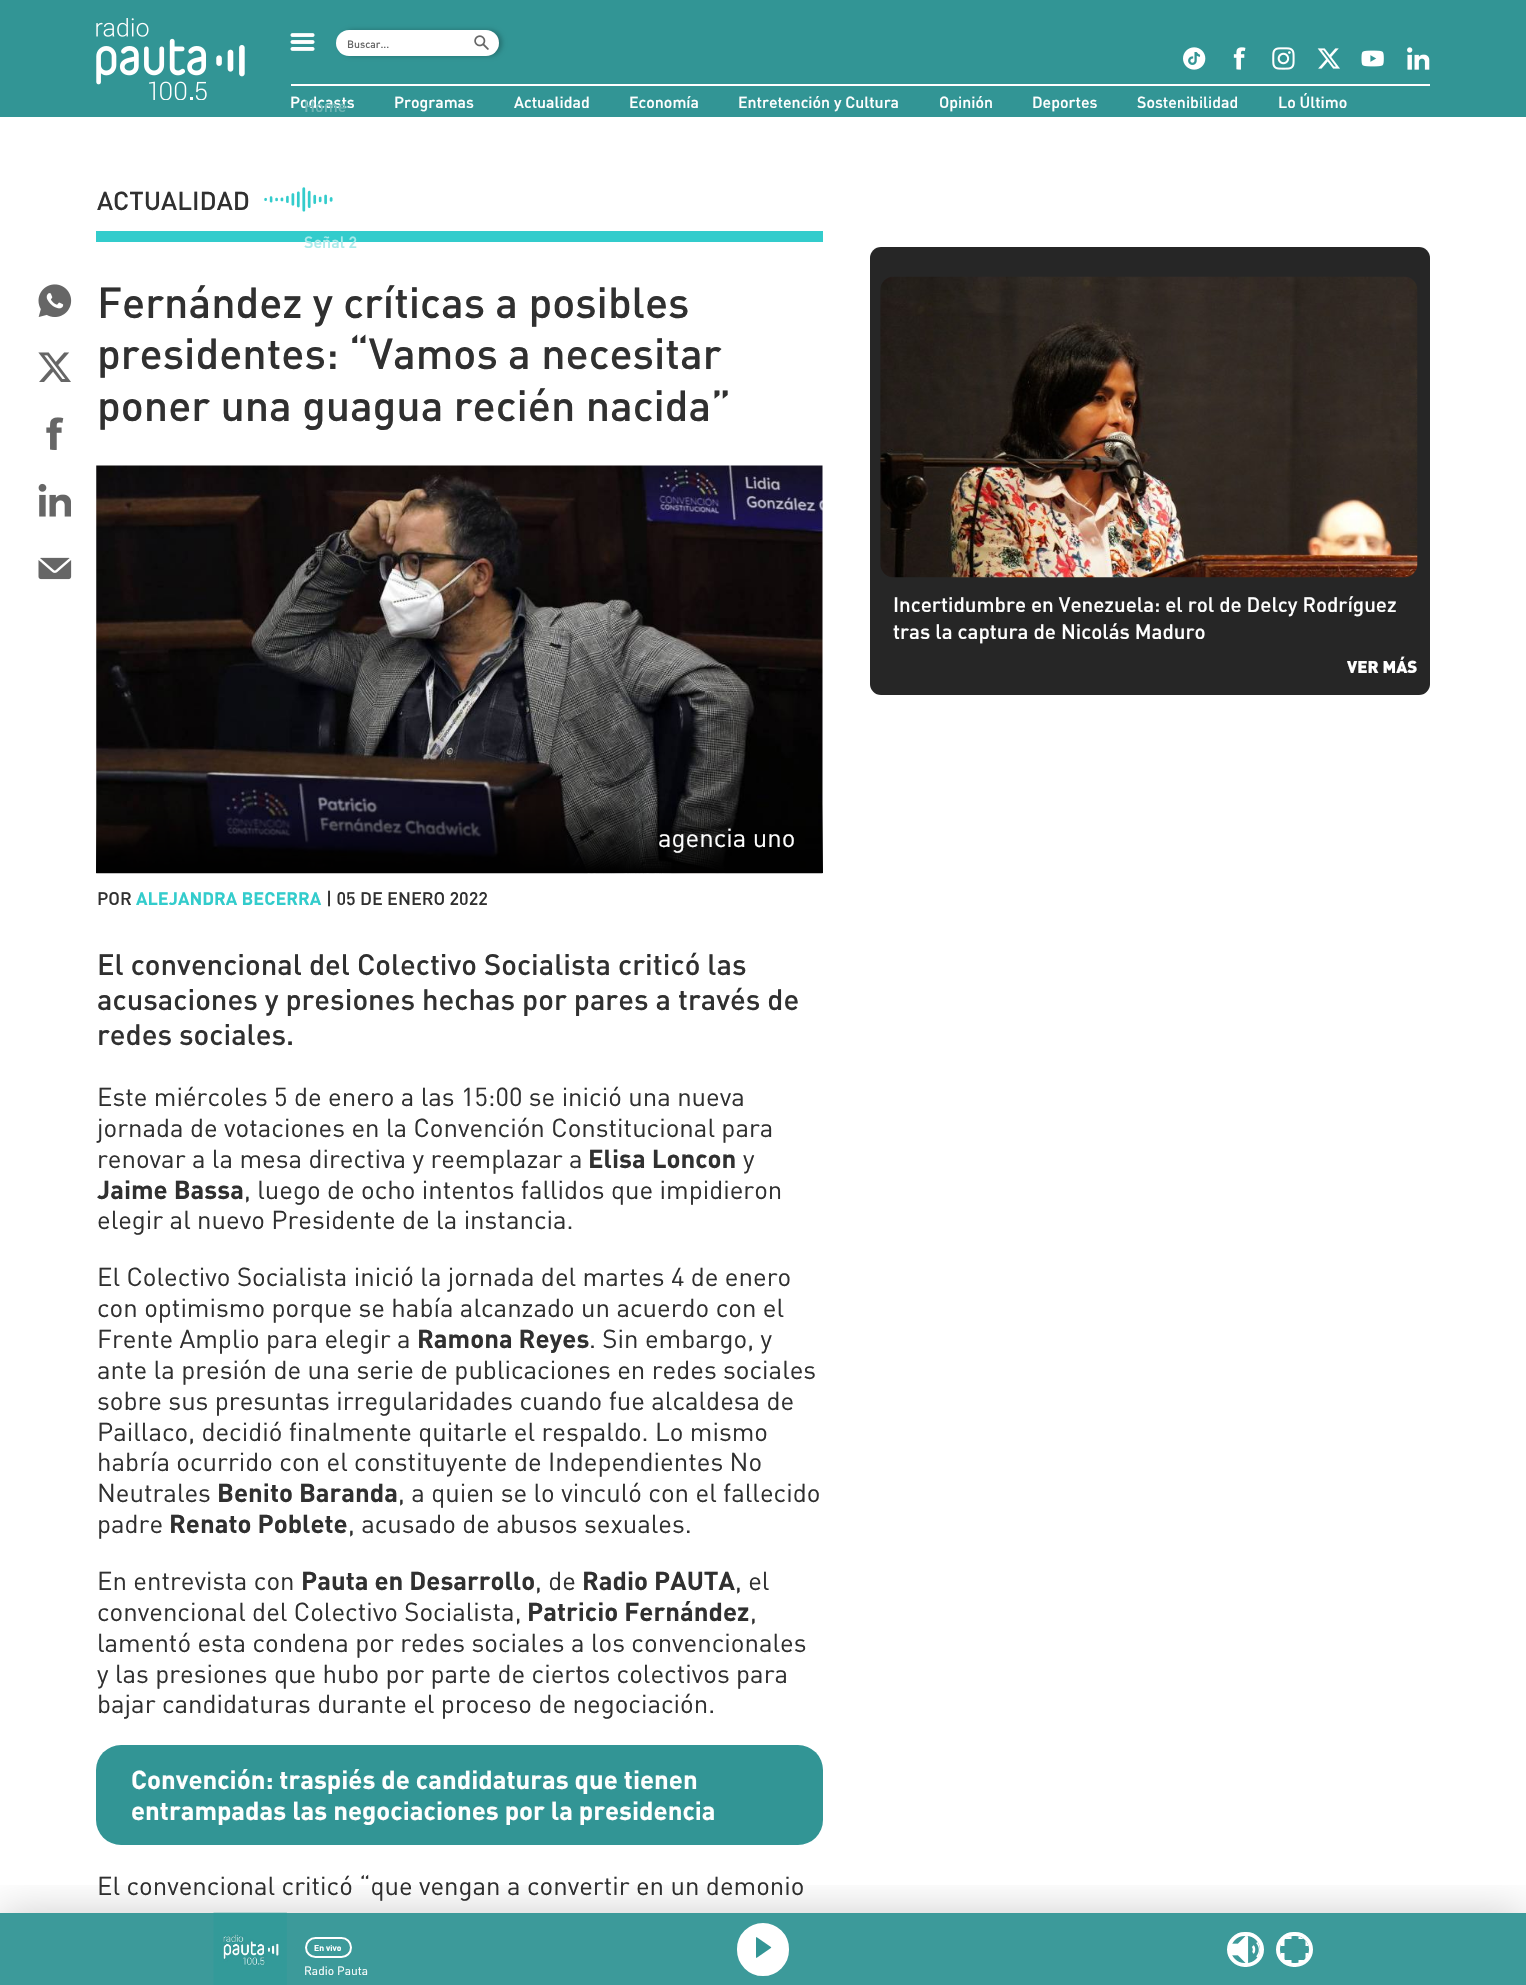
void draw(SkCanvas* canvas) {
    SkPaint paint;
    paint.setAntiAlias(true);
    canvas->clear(0xFFFFFFFF);
    paint.setColor(0xFF329595);
    canvas->drawRect(SkRect::MakeXYWH(0, 0, 1526, 117), paint);
    canvas->drawImageRect(SkImages::DeferredFromEncodedData(SkData::MakeFromFileName("img1.png")), SkRect::MakeXYWH(96, 18, 149, 82), SkSamplingOptions());
    canvas->drawImageRect(SkImages::DeferredFromEncodedData(SkData::MakeFromFileName("img2.png")), SkRect::MakeXYWH(290, 33, 25, 18), SkSamplingOptions());
    paint.setColor(0x40000000);
    paint.setMaskFilter(SkMaskFilter::MakeBlur(kNormal_SkBlurStyle, 2.5f));
    canvas->drawRoundRect(SkRect::MakeXYWH(340, 30, 162, 26), 13, 13, paint);
    paint.setMaskFilter(nullptr);
    paint.setColor(0xFFFFFFFF);
    canvas->drawRoundRect(SkRect::MakeXYWH(336, 30, 163, 26), 13, 13, paint);
    SkFont font1(fontMgr->matchFamilyStyle("DIN", SkFontStyle(500, SkFontStyle::kNormal_Width, SkFontStyle::kUpright_Slant)), 10.5f);
    font1.setSubpixel(true);
    paint.setColor(0xFF666666);
    canvas->drawString("Buscar...", 347, 48, font1, paint);
    canvas->drawImageRect(SkImages::DeferredFromEncodedData(SkData::MakeFromFileName("img3.png")), SkRect::MakeXYWH(474, 35, 15, 15), SkSamplingOptions());
    SkFont font2(fontMgr->matchFamilyStyle("DIN", SkFontStyle(500, SkFontStyle::kNormal_Width, SkFontStyle::kUpright_Slant)), 15.9f);
    font2.setSubpixel(true);
    paint.setColor(0xFFFFFFFF);
    canvas->drawString("Podcasts", 290, 108, font2, paint);
    SkFont font3(fontMgr->matchFamilyStyle("DIN", SkFontStyle(500, SkFontStyle::kNormal_Width, SkFontStyle::kUpright_Slant)), 16);
    font3.setSubpixel(true);
    paint.setColor(0xFF6DB3B3);
    canvas->drawString("Home", 304, 112, font3, paint);
    paint.setColor(0xFF33CCCC);
    canvas->drawRect(SkRect::MakeXYWH(96, 231, 727, 11), paint);
    paint.setColor(0xFFA9EAEA);
    canvas->drawString("Señal 2", 304, 248, font3, paint);
    canvas->drawImageRect(SkImages::DeferredFromEncodedData(SkData::MakeFromFileName("img4.png")), SkRect::MakeXYWH(1183, 47, 23, 23), SkSamplingOptions());
    canvas->drawImageRect(SkImages::DeferredFromEncodedData(SkData::MakeFromFileName("img5.png")), SkRect::MakeXYWH(1233, 47, 13, 23), SkSamplingOptions());
    canvas->drawImageRect(SkImages::DeferredFromEncodedData(SkData::MakeFromFileName("img6.png")), SkRect::MakeXYWH(1272, 47, 23, 23), SkSamplingOptions());
    canvas->drawImageRect(SkImages::DeferredFromEncodedData(SkData::MakeFromFileName("img7.png")), SkRect::MakeXYWH(1317, 48, 23, 21), SkSamplingOptions());
    canvas->drawImageRect(SkImages::DeferredFromEncodedData(SkData::MakeFromFileName("img8.png")), SkRect::MakeXYWH(1361, 50, 23, 17), SkSamplingOptions());
    canvas->drawImageRect(SkImages::DeferredFromEncodedData(SkData::MakeFromFileName("img9.png")), SkRect::MakeXYWH(1407, 47, 23, 23), SkSamplingOptions());
    paint.setColor(0xFFFFFFFF);
    canvas->drawRect(SkRect::MakeXYWH(291, 84, 1139, 2), paint);
    canvas->drawString("Programas", 394, 108, font2, paint);
    canvas->drawString("Actualidad", 514, 108, font2, paint);
    canvas->drawString("Economía", 629, 108, font2, paint);
    canvas->drawString("Entretención y Cultura", 738, 108, font2, paint);
    canvas->drawString("Opinión", 939, 108, font2, paint);
    canvas->drawString("Deportes", 1032, 108, font2, paint);
    canvas->drawString("Sostenibilidad", 1137, 108, font2, paint);
    canvas->drawString("Lo Último", 1278, 108, font2, paint);
    SkFont font4(fontMgr->matchFamilyStyle("DIN", SkFontStyle(500, SkFontStyle::kNormal_Width, SkFontStyle::kUpright_Slant)), 25.75f);
    font4.setSubpixel(true);
    paint.setColor(0xFF303030);
    canvas->drawString("ACTUALIDAD", 97, 210, font4, paint);
    canvas->drawImageRect(SkImages::DeferredFromEncodedData(SkData::MakeFromFileName("img10.png")), SkRect::MakeXYWH(264, 187, 69, 25), SkSamplingOptions());
    canvas->drawImageRect(SkImages::DeferredFromEncodedData(SkData::MakeFromFileName("img11.png")), SkRect::MakeXYWH(38, 284, 34, 33), SkSamplingOptions());
    canvas->drawImageRect(SkImages::DeferredFromEncodedData(SkData::MakeFromFileName("img12.png")), SkRect::MakeXYWH(38, 352, 33, 30), SkSamplingOptions());
    canvas->drawImageRect(SkImages::DeferredFromEncodedData(SkData::MakeFromFileName("img13.png")), SkRect::MakeXYWH(46, 417, 18, 33), SkSamplingOptions());
    canvas->drawImageRect(SkImages::DeferredFromEncodedData(SkData::MakeFromFileName("img14.png")), SkRect::MakeXYWH(38, 483, 33, 34), SkSamplingOptions());
    canvas->drawImageRect(SkImages::DeferredFromEncodedData(SkData::MakeFromFileName("img15.png")), SkRect::MakeXYWH(38, 557, 34, 23), SkSamplingOptions());
    SkFont font5(fontMgr->matchFamilyStyle("DIN", SkFontStyle(500, SkFontStyle::kNormal_Width, SkFontStyle::kUpright_Slant)), 42.9f);
    font5.setSubpixel(true);
    canvas->drawString("Fernández y críticas a posibles", 97, 318, font5, paint);
    canvas->drawString("presidentes: “Vamos a necesitar", 97, 369, font5, paint);
    canvas->drawString("poner una guagua recién nacida”", 97, 421, font5, paint);
    canvas->drawImageRect(SkImages::DeferredFromEncodedData(SkData::MakeFromFileName("img16.png")), SkRect::MakeXYWH(96, 465, 727, 409), SkSamplingOptions());
    {
        const SkColor colors[] = {0xFF000000, 0x00000000};
        const float stops[] = {0, 1};
        const SkPoint ends[] = {{459, 873}, {459, 803}};
        paint.setShader(SkGradientShader::MakeLinear(ends, colors, stops, 2, SkTileMode::kClamp));
        paint.setAlpha(255);
    }
    canvas->drawRect(SkRect::MakeXYWH(96, 805, 727, 68), paint);
    SkFont font6(fontMgr->matchFamilyStyle("DIN", SkFontStyle::Normal()), 25.75f);
    font6.setSubpixel(true);
    paint.setShader(nullptr);
    paint.setColor(0xFFFFFFFF);
    canvas->drawString("agencia uno", 658, 847, font6, paint);
    SkFont font7(fontMgr->matchFamilyStyle("DIN", SkFontStyle(500, SkFontStyle::kNormal_Width, SkFontStyle::kUpright_Slant)), 18);
    font7.setSubpixel(true);
    paint.setColor(0xFF303030);
    canvas->drawString("POR", 97, 905, font7, paint);
    SkFont font8(fontMgr->matchFamilyStyle("DIN", SkFontStyle::Bold()), 18);
    font8.setSubpixel(true);
    paint.setColor(0xFF33CCCC);
    canvas->drawString("ALEJANDRA BECERRA", 136, 905, font8, paint);
    paint.setColor(0xFF303030);
    canvas->drawString("| 05 DE ENERO 2022", 326, 905, font7, paint);
    SkFont font9(fontMgr->matchFamilyStyle("DIN", SkFontStyle(500, SkFontStyle::kNormal_Width, SkFontStyle::kUpright_Slant)), 29.2f);
    font9.setSubpixel(true);
    canvas->drawString("El convencional del Colectivo Socialista criticó las", 97, 975, font9, paint);
    canvas->drawString("acusaciones y presiones hechas por pares a través de", 97, 1010, font9, paint);
    canvas->drawString("redes sociales.", 97, 1045, font9, paint);
    canvas->drawString("Este miércoles 5 de enero a las 15:00 se inició una nueva", 97, 1106, font6, paint);
    canvas->drawString("jornada de votaciones en la Convención Constitucional para", 97, 1137, font6, paint);
    canvas->drawString("renovar a la mesa directiva y reemplazar a", 97, 1168, font6, paint);
    SkFont font10(fontMgr->matchFamilyStyle("DIN", SkFontStyle::Bold()), 25.75f);
    font10.setSubpixel(true);
    canvas->drawString("Elisa Loncon", 588, 1168, font10, paint);
    canvas->drawString("y", 743, 1168, font6, paint);
    canvas->drawString("Jaime Bassa", 97, 1199, font10, paint);
    canvas->drawString(", luego de ocho intentos fallidos que impidieron", 244, 1199, font6, paint);
    canvas->drawString("elegir al nuevo Presidente de la instancia.", 97, 1229, font6, paint);
    canvas->drawString("El Colectivo Socialista inició la jornada del martes 4 de enero", 97, 1286, font6, paint);
    canvas->drawString("con optimismo porque se había alcanzado un acuerdo con el", 97, 1317, font6, paint);
    canvas->drawString("Frente Amplio para elegir a", 97, 1348, font6, paint);
    canvas->drawString("Ramona Reyes", 417, 1348, font10, paint);
    canvas->drawString(". Sin embargo, y", 589, 1348, font6, paint);
    canvas->drawString("ante la presión de una serie de publicaciones en redes sociales", 97, 1379, font6, paint);
    canvas->drawString("sobre sus presuntas irregularidades cuando fue alcaldesa de", 97, 1410, font6, paint);
    canvas->drawString("Paillaco, decidió finalmente quitarle el respaldo. Lo mismo", 97, 1441, font6, paint);
    canvas->drawString("habría ocurrido con el constituyente de Independientes No", 97, 1471, font6, paint);
    canvas->drawString("Neutrales", 97, 1502, font6, paint);
    canvas->drawString("Benito Baranda", 217, 1502, font10, paint);
    canvas->drawString(", a quien se lo vinculó con el fallecido", 398, 1502, font6, paint);
    canvas->drawString("padre", 97, 1533, font6, paint);
    canvas->drawString("Renato Poblete", 169, 1533, font10, paint);
    canvas->drawString(", acusado de abusos sexuales.", 348, 1533, font6, paint);
    canvas->drawString("En entrevista con", 97, 1590, font6, paint);
    canvas->drawString("Pauta en Desarrollo", 301, 1590, font10, paint);
    canvas->drawString(", de", 535, 1590, font6, paint);
    canvas->drawString("Radio PAUTA", 582, 1590, font10, paint);
    canvas->drawString(", el", 735, 1590, font6, paint);
    canvas->drawString("convencional del Colectivo Socialista,", 97, 1621, font6, paint);
    canvas->drawString("Patricio Fernández", 527, 1621, font10, paint);
    canvas->drawString(",", 750, 1621, font6, paint);
    canvas->drawString("lamentó esta condena por redes sociales a los convencionales", 97, 1652, font6, paint);
    canvas->drawString("y las presiones que hubo por parte de ciertos colectivos para", 97, 1683, font6, paint);
    canvas->drawString("bajar candidaturas durante el proceso de negociación.", 97, 1713, font6, paint);
    paint.setColor(0xFF329595);
    canvas->drawRoundRect(SkRect::MakeXYWH(96, 1745, 727, 100), 25, 25, paint);
    paint.setColor(0xFFFFFFFF);
    canvas->drawString("Convención: traspiés de candidaturas que tienen", 131, 1789, font10, paint);
    canvas->drawString("entrampadas las negociaciones por la presidencia", 131, 1820, font10, paint);
    paint.setColor(0xFF303030);
    canvas->drawString("El convencional criticó “que vengan a convertir en un demonio", 97, 1895, font6, paint);
    paint.setColor(0xFF262626);
    canvas->drawRoundRect(SkRect::MakeXYWH(870, 247, 560, 448), 11, 11, paint);
    canvas->drawImageRect(SkImages::DeferredFromEncodedData(SkData::MakeFromFileName("img17.png")), SkRect::MakeXYWH(880, 276, 538, 302), SkSamplingOptions());
    SkFont font11(fontMgr->matchFamilyStyle("DIN", SkFontStyle(500, SkFontStyle::kNormal_Width, SkFontStyle::kUpright_Slant)), 20.6f);
    font11.setSubpixel(true);
    paint.setColor(0xFFFFFFFF);
    canvas->drawString("Incertidumbre en Venezuela: el rol de Delcy Rodríguez", 893, 612, font11, paint);
    canvas->drawString("tras la captura de Nicolás Maduro", 893, 639, font11, paint);
    SkFont font12(fontMgr->matchFamilyStyle("DIN", SkFontStyle(900, SkFontStyle::kNormal_Width, SkFontStyle::kUpright_Slant)), 17);
    font12.setSubpixel(true);
    canvas->drawString("VER MÁS", 1347, 673, font12, paint);
    canvas->save();
    canvas->clipRect(SkRect::MakeXYWH(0, 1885, 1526, 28));
    paint.setColor(0x33000000);
    paint.setMaskFilter(SkMaskFilter::MakeBlur(kNormal_SkBlurStyle, 21.5f));
    canvas->drawRect(SkRect::MakeXYWH(0, 1913, 1526, 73), paint);
    paint.setMaskFilter(nullptr);
    canvas->restore();
    paint.setColor(0xF2329595);
    canvas->drawRect(SkRect::MakeXYWH(0, 1913, 1526, 72), paint);
    canvas->drawImageRect(SkImages::DeferredFromEncodedData(SkData::MakeFromFileName("img18.png")), SkRect::MakeXYWH(213, 1912, 74, 73), SkSamplingOptions());
    paint.setStyle(SkPaint::kStroke_Style);
    paint.setStrokeWidth(2);
    paint.setColor(0xFFFFFFFF);
    canvas->drawRoundRect(SkRect::MakeXYWH(306, 1938, 45, 19), 9.5f, 9.5f, paint);
    SkFont font13(fontMgr->matchFamilyStyle("DIN", SkFontStyle::Bold()), 8.5f);
    font13.setSubpixel(true);
    paint.setStyle(SkPaint::kFill_Style);
    canvas->drawString("En vivo", 314, 1951, font13, paint);
    SkFont font14(fontMgr->matchFamilyStyle("DIN", SkFontStyle::Normal()), 12);
    font14.setSubpixel(true);
    canvas->drawString("Radio Pauta", 304, 1975, font14, paint);
    canvas->drawRoundRect(SkRect::MakeXYWH(739, 1925, 48, 49), 24, 24, paint);
    paint.setStyle(SkPaint::kStroke_Style);
    paint.setStrokeWidth(4);
    canvas->drawRoundRect(SkRect::MakeXYWH(739, 1925, 48, 49), 24, 24, paint);
    canvas->drawImageRect(SkImages::DeferredFromEncodedData(SkData::MakeFromFileName("img19.png")), SkRect::MakeXYWH(756, 1937, 16, 21), SkSamplingOptions());
    canvas->drawRoundRect(SkRect::MakeXYWH(1229, 1934, 33, 31), 15.5f, 15.5f, paint);
    canvas->drawImageRect(SkImages::DeferredFromEncodedData(SkData::MakeFromFileName("img20.png")), SkRect::MakeXYWH(1231, 1936, 29, 27), SkSamplingOptions());
    canvas->drawRoundRect(SkRect::MakeXYWH(1278, 1934, 33, 31), 15.5f, 15.5f, paint);
    canvas->drawImageRect(SkImages::DeferredFromEncodedData(SkData::MakeFromFileName("img21.png")), SkRect::MakeXYWH(1281, 1936, 28, 27), SkSamplingOptions());
}
